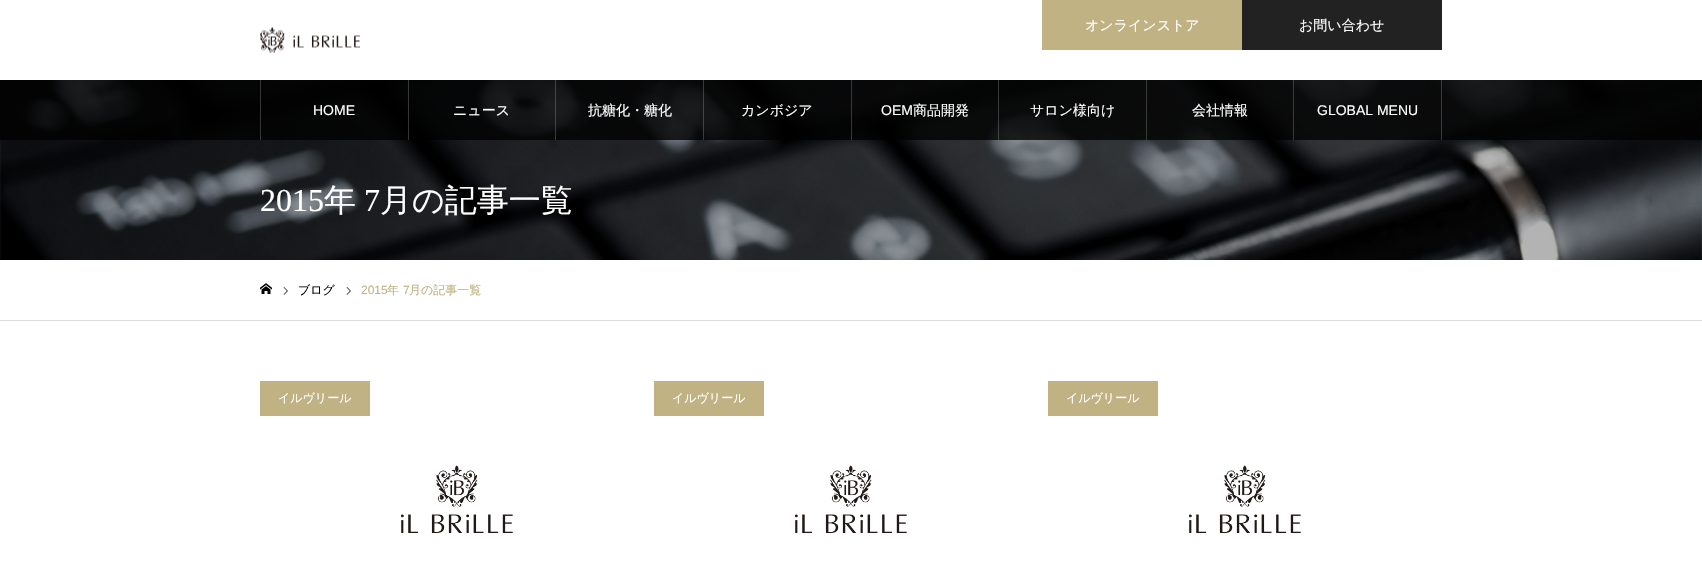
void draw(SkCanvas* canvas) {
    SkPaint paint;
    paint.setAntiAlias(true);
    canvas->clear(0xFFFFFFFF);
    paint.setColor(0xFFC0B283);
    canvas->drawRect(SkRect::MakeXYWH(1042, 0, 200, 50), paint);
    SkFont font1(fontMgr->matchFamilyStyle("WenQuanYi Zen Hei", SkFontStyle(500, SkFontStyle::kNormal_Width, SkFontStyle::kUpright_Slant)), 14);
    font1.setSubpixel(true);
    paint.setColor(0xFFFFFFFF);
    canvas->drawString("オンラインストア", 1085, 30, font1, paint);
    paint.setColor(0xFF222222);
    canvas->drawRect(SkRect::MakeXYWH(1242, 0, 200, 50), paint);
    paint.setColor(0xFFFFFFFF);
    canvas->drawString("お問い合わせ", 1299, 30, font1, paint);
    canvas->drawImageRect(SkImages::DeferredFromEncodedData(SkData::MakeFromFileName("img1.png")), SkRect::MakeXYWH(260, 27, 100, 26), SkSamplingOptions());
    canvas->drawImageRect(SkImages::DeferredFromEncodedData(SkData::MakeFromFileName("img2.png")), SkRect::MakeXYWH(0, 80, 1702, 180), SkSamplingOptions());
    paint.setColor(0xCC000000);
    canvas->drawRect(SkRect::MakeXYWH(0, 80, 1702, 60), paint);
    paint.setColor(0x33FFFFFF);
    canvas->drawRect(SkRect::MakeXYWH(260, 80, 1, 60), paint);
    canvas->drawRect(SkRect::MakeXYWH(408, 80, 1, 60), paint);
    SkFont font2(fontMgr->matchFamilyStyle("Liberation Sans", SkFontStyle::Normal()), 14);
    font2.setSubpixel(true);
    paint.setColor(0xFFFFFFFF);
    canvas->drawString("HOME", 313, 115, font2, paint);
    paint.setColor(0x33FFFFFF);
    canvas->drawRect(SkRect::MakeXYWH(555, 80, 1, 60), paint);
    paint.setColor(0xFFFFFFFF);
    canvas->drawString("ニュース", 453, 115, font1, paint);
    paint.setColor(0x33FFFFFF);
    canvas->drawRect(SkRect::MakeXYWH(703, 80, 1, 60), paint);
    paint.setColor(0xFFFFFFFF);
    canvas->drawString("抗糖化・糖化", 588, 115, font1, paint);
    paint.setColor(0x33FFFFFF);
    canvas->drawRect(SkRect::MakeXYWH(851, 80, 1, 60), paint);
    paint.setColor(0xFFFFFFFF);
    canvas->drawString("カンボジア", 741, 115, font1, paint);
    paint.setColor(0x33FFFFFF);
    canvas->drawRect(SkRect::MakeXYWH(998, 80, 1, 60), paint);
    paint.setColor(0xFFFFFFFF);
    canvas->drawString("OEM", 881, 115, font2, paint);
    canvas->drawString("商品開発", 913, 115, font1, paint);
    paint.setColor(0x33FFFFFF);
    canvas->drawRect(SkRect::MakeXYWH(1146, 80, 1, 60), paint);
    paint.setColor(0xFFFFFFFF);
    canvas->drawString("サロン様向け", 1030, 115, font1, paint);
    paint.setColor(0x33FFFFFF);
    canvas->drawRect(SkRect::MakeXYWH(1293, 80, 1, 60), paint);
    paint.setColor(0xFFFFFFFF);
    canvas->drawString("会社情報", 1192, 115, font1, paint);
    paint.setColor(0x33FFFFFF);
    canvas->drawRect(SkRect::MakeXYWH(1441, 80, 1, 60), paint);
    paint.setColor(0xFFFFFFFF);
    canvas->drawString("GLOBAL MENU", 1317, 115, font2, paint);
    SkFont font3(fontMgr->matchFamilyStyle("Liberation Serif", SkFontStyle::Normal()), 32);
    font3.setSubpixel(true);
    canvas->drawString("2015", 260, 211, font3, paint);
    SkFont font4(fontMgr->matchFamilyStyle("WenQuanYi Zen Hei", SkFontStyle(500, SkFontStyle::kNormal_Width, SkFontStyle::kUpright_Slant)), 32);
    font4.setSubpixel(true);
    canvas->drawString("年", 324, 211, font4, paint);
    canvas->drawString("7", 364, 211, font3, paint);
    canvas->drawString("月の記事一覧", 380, 211, font4, paint);
    paint.setColor(0xFFDDDDDD);
    canvas->drawRect(SkRect::MakeXYWH(0, 320, 1702, 1), paint);
    canvas->drawImageRect(SkImages::DeferredFromEncodedData(SkData::MakeFromFileName("img3.png")), SkRect::MakeXYWH(260, 283, 12, 11), SkSamplingOptions());
    canvas->drawImageRect(SkImages::DeferredFromEncodedData(SkData::MakeFromFileName("img4.png")), SkRect::MakeXYWH(283, 287, 5, 8), SkSamplingOptions());
    SkFont font5(fontMgr->matchFamilyStyle("WenQuanYi Zen Hei", SkFontStyle(500, SkFontStyle::kNormal_Width, SkFontStyle::kUpright_Slant)), 12);
    font5.setSubpixel(true);
    paint.setColor(0xFF000000);
    canvas->drawString("ブログ", 298, 294, font5, paint);
    canvas->drawImageRect(SkImages::DeferredFromEncodedData(SkData::MakeFromFileName("img4.png")), SkRect::MakeXYWH(346, 287, 5, 8), SkSamplingOptions());
    SkFont font6(fontMgr->matchFamilyStyle("Liberation Sans", SkFontStyle::Normal()), 12);
    font6.setSubpixel(true);
    paint.setColor(0xFFC0B283);
    canvas->drawString("2015", 361, 294, font6, paint);
    canvas->drawString("年", 387, 294, font5, paint);
    canvas->drawString("7", 403, 294, font6, paint);
    canvas->drawString("月の記事一覧", 409, 294, font5, paint);
    canvas->drawRect(SkRect::MakeXYWH(260, 381, 110, 35), paint);
    paint.setColor(0xFFFFFFFF);
    canvas->drawString("イルヴリール", 278, 402, font5, paint);
    canvas->drawImageRect(SkImages::DeferredFromEncodedData(SkData::MakeFromFileName("img5.png")), SkRect::MakeXYWH(401, 465, 112, 68), SkSamplingOptions());
    paint.setColor(0xFFC0B283);
    canvas->drawRect(SkRect::MakeXYWH(654, 381, 110, 35), paint);
    paint.setColor(0xFFFFFFFF);
    canvas->drawString("イルヴリール", 672, 402, font5, paint);
    canvas->drawImageRect(SkImages::DeferredFromEncodedData(SkData::MakeFromFileName("img5.png")), SkRect::MakeXYWH(795, 465, 112, 68), SkSamplingOptions());
    paint.setColor(0xFFC0B283);
    canvas->drawRect(SkRect::MakeXYWH(1048, 381, 110, 35), paint);
    paint.setColor(0xFFFFFFFF);
    canvas->drawString("イルヴリール", 1066, 402, font5, paint);
    canvas->drawImageRect(SkImages::DeferredFromEncodedData(SkData::MakeFromFileName("img5.png")), SkRect::MakeXYWH(1189, 465, 112, 68), SkSamplingOptions());
}
